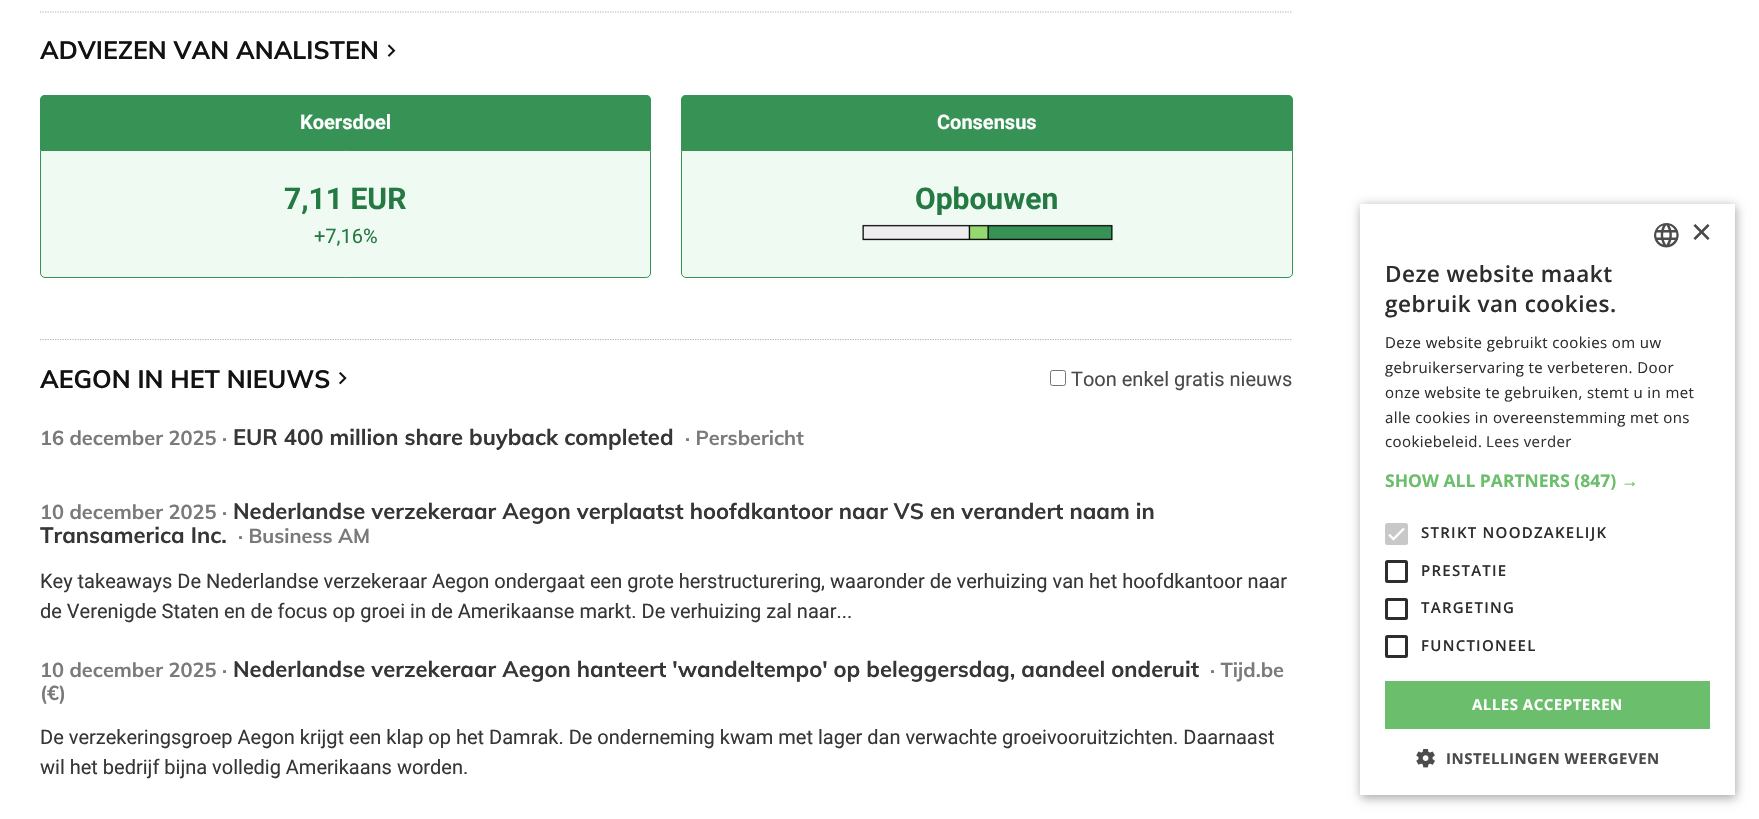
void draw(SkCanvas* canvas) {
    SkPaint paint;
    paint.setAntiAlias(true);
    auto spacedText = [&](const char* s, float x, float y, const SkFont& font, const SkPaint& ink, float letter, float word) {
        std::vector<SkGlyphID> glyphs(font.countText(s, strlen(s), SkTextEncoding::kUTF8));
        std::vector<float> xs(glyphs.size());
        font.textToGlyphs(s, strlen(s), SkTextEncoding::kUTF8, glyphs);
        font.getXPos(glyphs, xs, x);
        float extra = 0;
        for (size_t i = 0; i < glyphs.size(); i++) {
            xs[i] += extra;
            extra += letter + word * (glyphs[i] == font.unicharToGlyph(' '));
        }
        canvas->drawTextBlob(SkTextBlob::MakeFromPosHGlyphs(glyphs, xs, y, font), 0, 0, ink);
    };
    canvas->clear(0xFFFFFFFF);
    paint.setStyle(SkPaint::kStroke_Style);
    paint.setStrokeWidth(1.2f);
    paint.setColor(0xFFB5B5B5);
    paint.setPathEffect(SkDashPathEffect::Make({{1.25f, 1.25f}}, 0));
    canvas->drawPath(SkPathBuilder().moveTo(40, 12).lineTo(1292.5f, 12).detach(), paint);
    paint.setPathEffect(nullptr);
    SkFont font1(fontMgr->matchFamilyStyle("Muli", SkFontStyle::Bold()), 25);
    font1.setSubpixel(true);
    paint.setStyle(SkPaint::kFill_Style);
    paint.setColor(0xFF121212);
    canvas->drawString("ADVIEZEN VAN ANALISTEN", 40, 59, font1, paint);
    canvas->drawImageRect(SkImages::DeferredFromEncodedData(SkData::MakeFromFileName("img1.png")), SkRect::MakeXYWH(387, 44, 9, 13), SkSamplingOptions());
    paint.setColor(0xFFEFFAF3);
    canvas->drawRoundRect(SkRect::MakeXYWH(40, 95, 611, 183), 5, 5, paint);
    paint.setColor(0xFF369355);
    canvas->drawPath(SkPathBuilder().moveTo(45, 95).lineTo(646, 95).cubicTo(649, 95, 651, 97, 651, 100).lineTo(651, 150).lineTo(40, 150).lineTo(40, 100).cubicTo(40, 97, 42, 95, 45, 95).close().detach(), paint);
    SkFont font2(fontMgr->matchFamilyStyle("Roboto", SkFontStyle::Bold()), 20);
    font2.setSubpixel(true);
    paint.setColor(0xFFFFFFFF);
    canvas->drawString("Koersdoel", 300, 129, font2, paint);
    paint.setStyle(SkPaint::kStroke_Style);
    paint.setStrokeWidth(1);
    paint.setColor(0xFF369355);
    canvas->drawPath(SkPathBuilder().moveTo(40.5f, 150.5f).lineTo(650.5f, 150.5f).lineTo(650.5f, 273).cubicTo(650.5f, 275.5f, 648.5f, 277.5f, 646, 277.5f).lineTo(45, 277.5f).cubicTo(42.5f, 277.5f, 40.5f, 275.5f, 40.5f, 273).close().detach(), paint);
    SkFont font3(fontMgr->matchFamilyStyle("Roboto", SkFontStyle::Bold()), 30);
    font3.setSubpixel(true);
    paint.setStyle(SkPaint::kFill_Style);
    paint.setColor(0xFF257942);
    canvas->drawString("7,11 EUR", 284, 209, font3, paint);
    SkFont font4(fontMgr->matchFamilyStyle("Roboto", SkFontStyle::Normal()), 20);
    font4.setSubpixel(true);
    canvas->drawString("+7,16%", 314, 243, font4, paint);
    paint.setColor(0xFFEFFAF3);
    canvas->drawRoundRect(SkRect::MakeXYWH(681, 95, 612, 183), 5, 5, paint);
    paint.setColor(0xFF369355);
    canvas->drawPath(SkPathBuilder().moveTo(686, 95).lineTo(1288, 95).cubicTo(1291, 95, 1293, 97, 1293, 100).lineTo(1293, 150).lineTo(681, 150).lineTo(681, 100).cubicTo(681, 97, 683, 95, 686, 95).close().detach(), paint);
    paint.setColor(0xFFFFFFFF);
    canvas->drawString("Consensus", 937, 129, font2, paint);
    paint.setStyle(SkPaint::kStroke_Style);
    paint.setColor(0xFF369355);
    canvas->drawPath(SkPathBuilder().moveTo(681.5f, 150.5f).lineTo(1292.5f, 150.5f).lineTo(1292.5f, 273).cubicTo(1292.5f, 275.5f, 1290.5f, 277.5f, 1288, 277.5f).lineTo(686, 277.5f).cubicTo(683.5f, 277.5f, 681.5f, 275.5f, 681.5f, 273).close().detach(), paint);
    paint.setStyle(SkPaint::kFill_Style);
    paint.setColor(0xFF257942);
    canvas->drawString("Opbouwen", 915, 209, font3, paint);
    canvas->drawImageRect(SkImages::DeferredFromEncodedData(SkData::MakeFromFileName("img2.png")), SkRect::MakeXYWH(862, 224, 251, 17), SkSamplingOptions());
    paint.setStyle(SkPaint::kStroke_Style);
    paint.setStrokeWidth(1.2f);
    paint.setColor(0xFFB5B5B5);
    paint.setPathEffect(SkDashPathEffect::Make({{1.25f, 1.25f}}, 0));
    canvas->drawPath(SkPathBuilder().moveTo(40, 339.5f).lineTo(1292.5f, 339.5f).detach(), paint);
    paint.setPathEffect(nullptr);
    paint.setStyle(SkPaint::kFill_Style);
    paint.setColor(0xFF121212);
    canvas->drawString("AEGON IN HET NIEUWS", 40, 388, font1, paint);
    canvas->drawImageRect(SkImages::DeferredFromEncodedData(SkData::MakeFromFileName("img3.png")), SkRect::MakeXYWH(339, 372, 8, 13), SkSamplingOptions());
    paint.setStyle(SkPaint::kStroke_Style);
    paint.setStrokeWidth(1);
    paint.setColor(0xFF767676);
    canvas->drawRoundRect(SkRect::MakeXYWH(1050.5f, 370.5f, 15, 15), 2, 2, paint);
    paint.setStyle(SkPaint::kFill_Style);
    paint.setColor(0xFF4A4A4A);
    canvas->drawString("Toon enkel gratis nieuws", 1071, 386, font4, paint);
    SkFont font5(fontMgr->matchFamilyStyle("Muli", SkFontStyle::Bold()), 20);
    font5.setSubpixel(true);
    paint.setColor(0xFF7A7A7A);
    canvas->drawString("16 december 2025 ·", 40, 445, font5, paint);
    SkFont font6(fontMgr->matchFamilyStyle("Muli", SkFontStyle::Bold()), 22);
    font6.setSubpixel(true);
    paint.setColor(0xFF363636);
    canvas->drawString("EUR 400 million share buyback completed", 233, 445, font6, paint);
    paint.setColor(0xFF7A7A7A);
    canvas->drawString("· Persbericht", 685, 445, font5, paint);
    canvas->drawString("10 december 2025 ·", 40, 519, font5, paint);
    paint.setColor(0xFF363636);
    canvas->drawString("Nederlandse verzekeraar Aegon verplaatst hoofdkantoor naar VS en verandert naam in", 233, 519, font6, paint);
    canvas->drawString("Transamerica Inc.", 40, 543, font6, paint);
    paint.setColor(0xFF7A7A7A);
    canvas->drawString("· Business AM", 238, 543, font5, paint);
    paint.setColor(0xFF363636);
    canvas->drawString("Key takeaways De Nederlandse verzekeraar Aegon ondergaat een grote herstructurering, waaronder de verhuizing van het hoofdkantoor naar", 40, 588, font4, paint);
    canvas->drawString("de Verenigde Staten en de focus op groei in de Amerikaanse markt. De verhuizing zal naar...", 40, 618, font4, paint);
    paint.setColor(0xFF7A7A7A);
    canvas->drawString("10 december 2025 ·", 40, 677, font5, paint);
    paint.setColor(0xFF363636);
    canvas->drawString("Nederlandse verzekeraar Aegon hanteert 'wandeltempo' op beleggersdag, aandeel onderuit", 233, 677, font6, paint);
    paint.setColor(0xFF7A7A7A);
    canvas->drawString("· Tijd.be", 1210, 677, font5, paint);
    canvas->drawString("(€)", 40, 700, font5, paint);
    paint.setColor(0xFF363636);
    canvas->drawString("De verzekeringsgroep Aegon krijgt een klap op het Damrak. De onderneming kwam met lager dan verwachte groeivooruitzichten. Daarnaast", 40, 744, font4, paint);
    canvas->drawString("wil het bedrijf bijna volledig Amerikaans worden.", 40, 774, font4, paint);
    canvas->save();
    canvas->clipPath(SkPathBuilder(SkPathFillType::kEvenOdd).moveTo(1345, 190).lineTo(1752, 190).lineTo(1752, 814).lineTo(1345, 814).close().moveTo(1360, 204).lineTo(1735, 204).lineTo(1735, 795).lineTo(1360, 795).close().detach(), true);
    paint.setColor(0x59000000);
    paint.setMaskFilter(SkMaskFilter::MakeBlur(kNormal_SkBlurStyle, 5));
    canvas->drawRect(SkRect::MakeXYWH(1361, 206, 375, 592), paint);
    paint.setMaskFilter(nullptr);
    canvas->restore();
    canvas->drawImageRect(SkImages::DeferredFromEncodedData(SkData::MakeFromFileName("img4.png")), SkRect::MakeXYWH(1654, 223, 25, 25), SkSamplingOptions());
    SkFont font7(fontMgr->matchFamilyStyle("Liberation Sans", SkFontStyle::Normal()), 36);
    font7.setSubpixel(true);
    paint.setColor(0xFF4A4A4A);
    canvas->drawString("×", 1691, 244, font7, paint);
    SkFont font8(fontMgr->matchFamilyStyle("Open Sans", SkFontStyle(600, SkFontStyle::kNormal_Width, SkFontStyle::kUpright_Slant)), 22.5f);
    font8.setSubpixel(true);
    paint.setColor(0xFF2D2D2D);
    spacedText("Deze website maakt", 1385, 282, font8, paint, 0.5f, 0);
    spacedText("gebruik van cookies.", 1385, 312, font8, paint, 0.5f, 0);
    SkFont font9(fontMgr->matchFamilyStyle("Open Sans", SkFontStyle::Normal()), 15);
    font9.setSubpixel(true);
    spacedText("Deze website gebruikt cookies om uw", 1385, 348, font9, paint, 0.4f, 0);
    spacedText("gebruikerservaring te verbeteren. Door", 1385, 373, font9, paint, 0.4f, 0);
    spacedText("onze website te gebruiken, stemt u in met", 1385, 398, font9, paint, 0.4f, 0);
    spacedText("alle cookies in overeenstemming met ons", 1385, 423, font9, paint, 0.4f, 0);
    spacedText("cookiebeleid.", 1385, 447, font9, paint, 0.4f, 0);
    paint.setColor(0xFF363636);
    spacedText("Lees verder", 1486, 447, font9, paint, 0.4f, 0);
    SkFont font10(fontMgr->matchFamilyStyle("Open Sans", SkFontStyle::Bold()), 17.5f);
    font10.setSubpixel(true);
    paint.setColor(0xFF6BBE6B);
    canvas->drawString("SHOW ALL PARTNERS (847)", 1385, 487, font10, paint);
    SkFont font11(fontMgr->matchFamilyStyle("Liberation Sans", SkFontStyle::Bold()), 17.5f);
    font11.setSubpixel(true);
    canvas->drawString("→", 1621, 487, font11, paint);
    paint.setColor(0xFFC8C8C8);
    canvas->drawRoundRect(SkRect::MakeXYWH(1385, 523, 23, 22), 2.5f, 2.5f, paint);
    paint.setStyle(SkPaint::kStroke_Style);
    paint.setStrokeWidth(2.3f);
    paint.setColor(0xFFFFFFFF);
    canvas->drawPath(SkPathBuilder().moveTo(1389, 534.5f).lineTo(1393.5f, 539).lineTo(1404, 528.5f).detach(), paint);
    SkFont font12(fontMgr->matchFamilyStyle("Open Sans", SkFontStyle(600, SkFontStyle::kNormal_Width, SkFontStyle::kUpright_Slant)), 15);
    font12.setSubpixel(true);
    paint.setStyle(SkPaint::kFill_Style);
    paint.setColor(0xFF2D2D2D);
    spacedText("STRIKT NOODZAKELIJK", 1421, 538, font12, paint, 1.25f, 0);
    paint.setStyle(SkPaint::kStroke_Style);
    paint.setStrokeWidth(3);
    canvas->drawRoundRect(SkRect::MakeXYWH(1386.5f, 561.5f, 20, 20), 1, 1, paint);
    paint.setStyle(SkPaint::kFill_Style);
    spacedText("PRESTATIE", 1421, 576, font12, paint, 1.25f, 0);
    paint.setStyle(SkPaint::kStroke_Style);
    canvas->drawRoundRect(SkRect::MakeXYWH(1386.5f, 599.5f, 20, 19), 1, 1, paint);
    paint.setStyle(SkPaint::kFill_Style);
    spacedText("TARGETING", 1421, 613, font12, paint, 1.25f, 0);
    paint.setStyle(SkPaint::kStroke_Style);
    canvas->drawRoundRect(SkRect::MakeXYWH(1386.5f, 636.5f, 20, 20), 1, 1, paint);
    paint.setStyle(SkPaint::kFill_Style);
    spacedText("FUNCTIONEEL", 1421, 651, font12, paint, 1.25f, 0);
    paint.setColor(0xFF6BBE6B);
    canvas->drawRect(SkRect::MakeXYWH(1385, 681, 325, 48), paint);
    SkFont font13(fontMgr->matchFamilyStyle("Open Sans", SkFontStyle::Bold()), 15);
    font13.setSubpixel(true);
    paint.setColor(0xFFFFFFFF);
    spacedText("ALLES ACCEPTEREN", 1472, 710, font13, paint, 0.5f, 0);
    canvas->drawImageRect(SkImages::DeferredFromEncodedData(SkData::MakeFromFileName("img5.png")), SkRect::MakeXYWH(1416, 749, 19, 19), SkSamplingOptions());
    paint.setColor(0xFF4A4A4A);
    spacedText("INSTELLINGEN WEERGEVEN", 1446, 764, font13, paint, 0.5f, 0);
}
